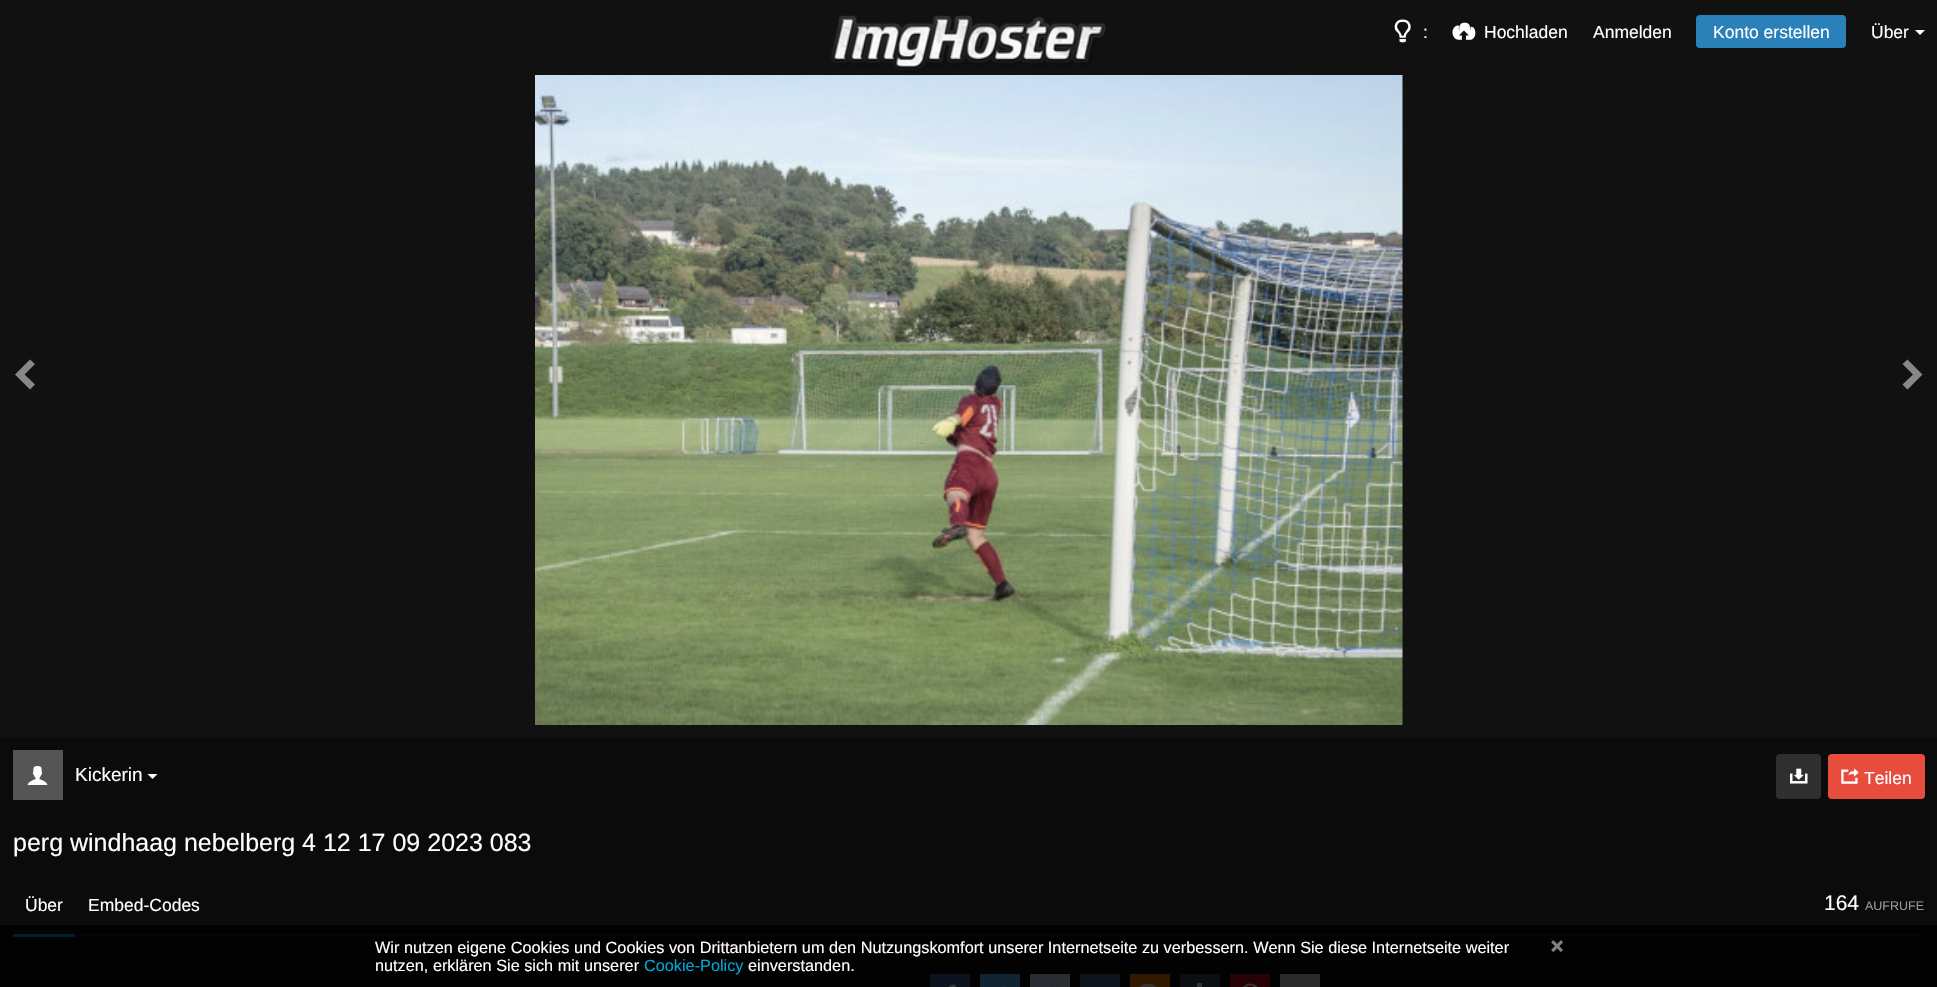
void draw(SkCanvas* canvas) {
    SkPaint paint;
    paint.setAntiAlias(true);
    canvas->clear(0xFF0B0B0B);
    paint.setColor(0xFF020202);
    canvas->drawRect(SkRect::MakeXYWH(0, 925, 1937, 62), paint);
    paint.setColor(0xFF111111);
    canvas->drawRect(SkRect::MakeXYWH(0, 0, 1937, 738), paint);
    canvas->drawImageRect(SkImages::DeferredFromEncodedData(SkData::MakeFromFileName("img4.png")), SkRect::MakeXYWH(535, 75, 868, 650), SkSamplingOptions());
    canvas->drawImageRect(SkImages::DeferredFromEncodedData(SkData::MakeFromFileName("img1.png")), SkRect::MakeXYWH(831, 15, 275, 61), SkSamplingOptions());
    canvas->drawImageRect(SkImages::DeferredFromEncodedData(SkData::MakeFromFileName("img2.png")), SkRect::MakeXYWH(1394, 19, 17, 24), SkSamplingOptions());
    SkFont font1(fontMgr->matchFamilyStyle("Liberation Sans", SkFontStyle::Normal()), 17.5f);
    font1.setSubpixel(true);
    paint.setColor(0xFFFFFFFF);
    canvas->drawString(":", 1423, 38, font1, paint);
    canvas->drawImageRect(SkImages::DeferredFromEncodedData(SkData::MakeFromFileName("img3.png")), SkRect::MakeXYWH(1452, 22, 24, 18), SkSamplingOptions());
    canvas->drawString("Hochladen", 1484, 38, font1, paint);
    canvas->drawString("Anmelden", 1593, 38, font1, paint);
    paint.setColor(0xFF2A80B9);
    canvas->drawRoundRect(SkRect::MakeXYWH(1696, 15, 150, 33), 4, 4, paint);
    paint.setColor(0xFFFFFFFF);
    canvas->drawString("Konto erstellen", 1713, 38, font1, paint);
    canvas->drawString("Über", 1871, 38, font1, paint);
    canvas->drawPath(SkPathBuilder().moveTo(1915, 30).lineTo(1925, 30).lineTo(1920, 35).close().detach(), paint);
    paint.setColor(0xFF888888);
    canvas->drawPath(SkPathBuilder().moveTo(30, 359.5f).lineTo(15, 374.5f).lineTo(30, 389.5f).lineTo(35, 384.5f).lineTo(24.5f, 374.5f).lineTo(35, 364).close().detach(), paint);
    canvas->drawPath(SkPathBuilder().moveTo(1907.5f, 359.5f).lineTo(1922.5f, 374.5f).lineTo(1907.5f, 389.5f).lineTo(1902.5f, 384.5f).lineTo(1913, 374.5f).lineTo(1902.5f, 364).close().detach(), paint);
    paint.setColor(0xFF555555);
    canvas->drawRect(SkRect::MakeXYWH(13, 750, 50, 50), paint);
    canvas->drawImageRect(SkImages::DeferredFromEncodedData(SkData::MakeFromFileName("img5.png")), SkRect::MakeXYWH(27, 766, 21, 19), SkSamplingOptions());
    SkFont font2(fontMgr->matchFamilyStyle("Liberation Sans", SkFontStyle::Normal()), 19);
    font2.setSubpixel(true);
    paint.setColor(0xFFFFFFFF);
    canvas->drawString("Kickerin", 75, 781, font2, paint);
    canvas->drawPath(SkPathBuilder().moveTo(147.5f, 774).lineTo(157.5f, 774).lineTo(152.5f, 779).close().detach(), paint);
    paint.setColor(0xFF2F2F2F);
    canvas->drawRoundRect(SkRect::MakeXYWH(1776, 754, 45, 45), 4, 4, paint);
    canvas->drawImageRect(SkImages::DeferredFromEncodedData(SkData::MakeFromFileName("img6.png")), SkRect::MakeXYWH(1790, 768, 18, 16), SkSamplingOptions());
    paint.setColor(0xFFE84C3D);
    canvas->drawRoundRect(SkRect::MakeXYWH(1828, 754, 97, 45), 4, 4, paint);
    canvas->drawImageRect(SkImages::DeferredFromEncodedData(SkData::MakeFromFileName("img7.png")), SkRect::MakeXYWH(1841, 768, 18, 16), SkSamplingOptions());
    paint.setColor(0xFFFFFFFF);
    canvas->drawString("Teilen", 1864, 784, font1, paint);
    SkFont font3(fontMgr->matchFamilyStyle("Liberation Sans", SkFontStyle::Normal()), 25);
    font3.setSubpixel(true);
    canvas->drawString("perg windhaag nebelberg 4 12 17 09 2023 083", 13, 851, font3, paint);
    paint.setColor(0xFF070707);
    canvas->drawRect(SkRect::MakeXYWH(75, 935, 1850, 1), paint);
    paint.setColor(0xFF00212C);
    canvas->drawRect(SkRect::MakeXYWH(13, 934, 62, 3), paint);
    paint.setColor(0xFFFFFFFF);
    canvas->drawString("Über", 25, 911, font1, paint);
    canvas->drawString("Embed-Codes", 88, 911, font1, paint);
    SkFont font4(fontMgr->matchFamilyStyle("Liberation Sans", SkFontStyle::Normal()), 21);
    font4.setSubpixel(true);
    canvas->drawString("164", 1824, 910, font4, paint);
    SkFont font5(fontMgr->matchFamilyStyle("Liberation Sans", SkFontStyle::Normal()), 12.5f);
    font5.setSubpixel(true);
    paint.setColor(0xFF999999);
    canvas->drawString("AUFRUFE", 1865, 910, font5, paint);
    paint.setColor(0xFF0C121E);
    canvas->drawRect(SkRect::MakeXYWH(930, 974, 40, 13), paint);
    canvas->drawImageRect(SkImages::DeferredFromEncodedData(SkData::MakeFromFileName("img8.png")), SkRect::MakeXYWH(948, 984, 8, 3), SkSamplingOptions());
    paint.setColor(0xFF112230);
    canvas->drawRect(SkRect::MakeXYWH(980, 974, 40, 13), paint);
    canvas->drawImageRect(SkImages::DeferredFromEncodedData(SkData::MakeFromFileName("img9.png")), SkRect::MakeXYWH(1002, 986, 8, 1), SkSamplingOptions());
    paint.setColor(0xFF292D32);
    canvas->drawRect(SkRect::MakeXYWH(1030, 974, 40, 13), paint);
    canvas->drawImageRect(SkImages::DeferredFromEncodedData(SkData::MakeFromFileName("img10.png")), SkRect::MakeXYWH(1051, 986, 8, 1), SkSamplingOptions());
    paint.setColor(0xFF0E141C);
    canvas->drawRect(SkRect::MakeXYWH(1080, 974, 40, 13), paint);
    paint.setColor(0xFF311900);
    canvas->drawRect(SkRect::MakeXYWH(1130, 974, 40, 13), paint);
    canvas->drawImageRect(SkImages::DeferredFromEncodedData(SkData::MakeFromFileName("img11.png")), SkRect::MakeXYWH(1140, 983, 16, 4), SkSamplingOptions());
    paint.setColor(0xFF0B0E12);
    canvas->drawRect(SkRect::MakeXYWH(1180, 974, 40, 13), paint);
    paint.setColor(0xFF333333);
    canvas->drawRect(SkRect::MakeXYWH(1197, 983, 5, 4), paint);
    paint.setColor(0xFF260206);
    canvas->drawRect(SkRect::MakeXYWH(1230, 974, 40, 13), paint);
    canvas->drawImageRect(SkImages::DeferredFromEncodedData(SkData::MakeFromFileName("img12.png")), SkRect::MakeXYWH(1243, 983, 15, 4), SkSamplingOptions());
    paint.setColor(0xFF292929);
    canvas->drawRect(SkRect::MakeXYWH(1280, 974, 40, 13), paint);
    SkFont font6(fontMgr->matchFamilyStyle("Liberation Sans", SkFontStyle::Normal()), 16.27f);
    font6.setSubpixel(true);
    paint.setColor(0xFFFFFFFF);
    canvas->drawString("Wir nutzen eigene Cookies und Cookies von Drittanbietern um den Nutzungskomfort unserer Internetseite zu verbessern. Wenn Sie diese Internetseite weiter", 375, 953, font6, paint);
    canvas->drawString("nutzen, erklären Sie sich mit unserer", 375, 971, font6, paint);
    paint.setColor(0xFF00A7DA);
    canvas->drawString("Cookie-Policy", 644, 971, font6, paint);
    paint.setColor(0xFFFFFFFF);
    canvas->drawString("einverstanden.", 748, 971, font6, paint);
    canvas->drawImageRect(SkImages::DeferredFromEncodedData(SkData::MakeFromFileName("img13.png")), SkRect::MakeXYWH(1551, 940, 12, 12), SkSamplingOptions());
}
